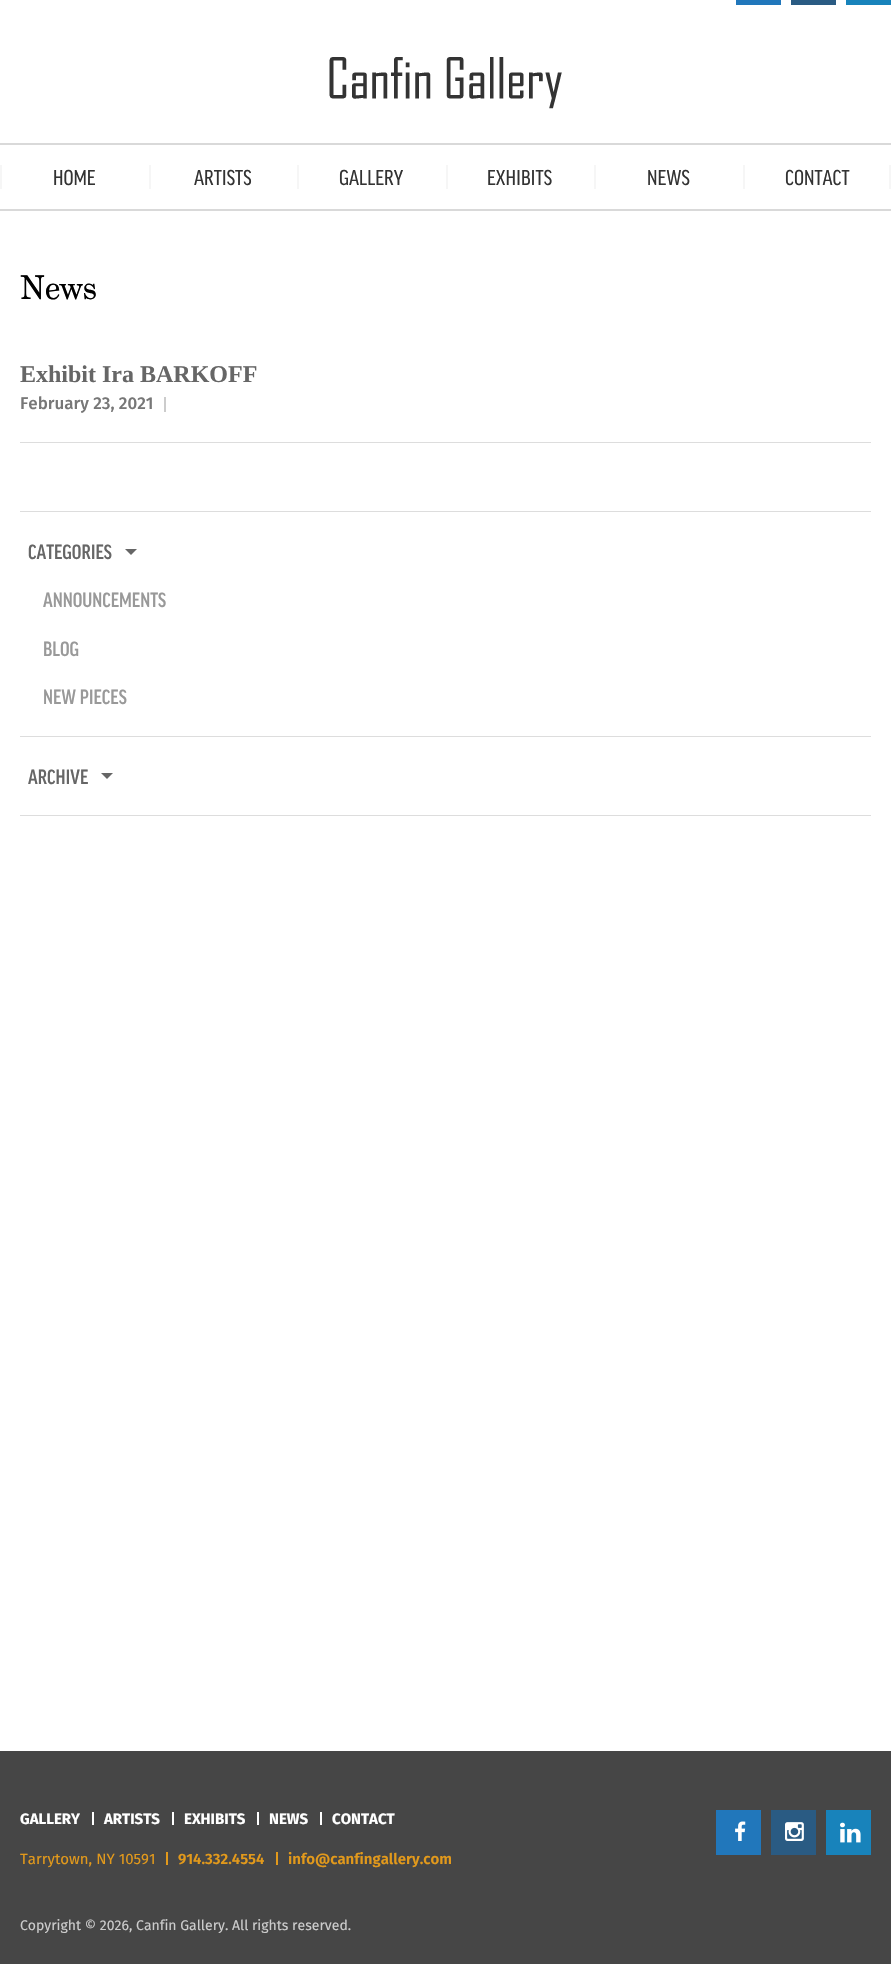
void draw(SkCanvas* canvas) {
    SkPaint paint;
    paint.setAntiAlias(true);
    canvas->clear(0xFFFFFFFF);
    paint.setColor(0xFF2177BB);
    canvas->drawRect(SkRect::MakeXYWH(736, 0, 45, 5), paint);
    paint.setColor(0xFF2A5B83);
    canvas->drawRect(SkRect::MakeXYWH(791, 0, 45, 5), paint);
    paint.setColor(0xFF1883BB);
    canvas->drawRect(SkRect::MakeXYWH(846, 0, 45, 5), paint);
    canvas->drawImageRect(SkImages::DeferredFromEncodedData(SkData::MakeFromFileName("img1.png")), SkRect::MakeXYWH(329, 57, 233, 52), SkSamplingOptions());
    paint.setColor(0xFFD9D9D9);
    canvas->drawRect(SkRect::MakeXYWH(0, 143, 891, 2), paint);
    canvas->drawRect(SkRect::MakeXYWH(0, 209, 891, 2), paint);
    paint.setColor(0xFFF6F6F6);
    canvas->drawRect(SkRect::MakeXYWH(0, 165, 2, 24), paint);
    SkFont font1(fontMgr->matchFamilyStyle("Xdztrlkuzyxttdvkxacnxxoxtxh", SkFontStyle(500, SkFontStyle::kNormal_Width, SkFontStyle::kUpright_Slant)), 23);
    font1.setSubpixel(true);
    paint.setColor(0xFF333333);
    canvas->drawString("HOME", 53, 185, font1, paint);
    paint.setColor(0xFFF6F6F6);
    canvas->drawRect(SkRect::MakeXYWH(149, 165, 2, 24), paint);
    paint.setColor(0xFF333333);
    canvas->drawString("ARTISTS", 194, 185, font1, paint);
    paint.setColor(0xFFF6F6F6);
    canvas->drawRect(SkRect::MakeXYWH(297, 165, 2, 24), paint);
    paint.setColor(0xFF333333);
    canvas->drawString("GALLERY", 339, 185, font1, paint);
    paint.setColor(0xFFF6F6F6);
    canvas->drawRect(SkRect::MakeXYWH(446, 165, 2, 24), paint);
    paint.setColor(0xFF333333);
    canvas->drawString("EXHIBITS", 487, 185, font1, paint);
    paint.setColor(0xFFF6F6F6);
    canvas->drawRect(SkRect::MakeXYWH(594, 165, 2, 24), paint);
    paint.setColor(0xFF333333);
    canvas->drawString("NEWS", 647, 185, font1, paint);
    paint.setColor(0xFFF6F6F6);
    canvas->drawRect(SkRect::MakeXYWH(743, 165, 2, 24), paint);
    paint.setColor(0xFF333333);
    canvas->drawString("CONTACT", 785, 185, font1, paint);
    paint.setColor(0xFFF6F6F6);
    canvas->drawRect(SkRect::MakeXYWH(889, 165, 2, 24), paint);
    SkFont font2(fontMgr->matchFamilyStyle("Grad", SkFontStyle::Normal()), 33);
    font2.setSubpixel(true);
    paint.setColor(0xFF000000);
    canvas->drawString("News", 20, 299, font2, paint);
    SkFont font3(fontMgr->matchFamilyStyle("Liberation Serif", SkFontStyle::Bold()), 24);
    font3.setSubpixel(true);
    paint.setColor(0xFF666666);
    canvas->drawString("Exhibit Ira BARKOFF", 20, 382, font3, paint);
    SkFont font4(fontMgr->matchFamilyStyle("Fira Sans", SkFontStyle(500, SkFontStyle::kNormal_Width, SkFontStyle::kUpright_Slant)), 17);
    font4.setSubpixel(true);
    paint.setColor(0xFF777777);
    canvas->drawString("February 23, 2021", 20, 409, font4, paint);
    paint.setColor(0xFFCCCCCC);
    canvas->drawRect(SkRect::MakeXYWH(164, 397, 2, 15), paint);
    paint.setColor(0xFFDDDDDD);
    canvas->drawRect(SkRect::MakeXYWH(20, 442, 851, 1), paint);
    canvas->drawRect(SkRect::MakeXYWH(20, 511, 851, 1), paint);
    canvas->drawRect(SkRect::MakeXYWH(20, 736, 851, 1), paint);
    SkFont font5(fontMgr->matchFamilyStyle("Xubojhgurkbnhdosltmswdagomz", SkFontStyle(500, SkFontStyle::kNormal_Width, SkFontStyle::kUpright_Slant)), 22);
    font5.setSubpixel(true);
    paint.setColor(0xFF666666);
    canvas->drawString("CATEGORIES", 28, 559, font5, paint);
    canvas->drawPath(SkPathBuilder().moveTo(125, 549).lineTo(137, 549).lineTo(131, 555).close().detach(), paint);
    paint.setColor(0xFF999999);
    canvas->drawString("ANNOUNCEMENTS", 43, 607, font5, paint);
    canvas->drawString("BLOG", 43, 656, font5, paint);
    canvas->drawString("NEW PIECES", 43, 704, font5, paint);
    paint.setColor(0xFFDDDDDD);
    canvas->drawRect(SkRect::MakeXYWH(20, 815, 851, 1), paint);
    paint.setColor(0xFF666666);
    canvas->drawString("ARCHIVE", 28, 784, font5, paint);
    canvas->drawPath(SkPathBuilder().moveTo(101, 773).lineTo(113, 773).lineTo(107, 779).close().detach(), paint);
    paint.setColor(0xFF464646);
    canvas->drawRect(SkRect::MakeXYWH(0, 1751, 891, 213), paint);
    SkFont font6(fontMgr->matchFamilyStyle("Fira Sans", SkFontStyle::Bold()), 15);
    font6.setSubpixel(true);
    paint.setColor(0xFFFFFFFF);
    canvas->drawString("GALLERY", 20, 1824, font6, paint);
    canvas->drawRect(SkRect::MakeXYWH(92, 1812, 2, 13), paint);
    canvas->drawString("ARTISTS", 104, 1824, font6, paint);
    canvas->drawRect(SkRect::MakeXYWH(172, 1812, 2, 13), paint);
    canvas->drawString("EXHIBITS", 184, 1824, font6, paint);
    canvas->drawRect(SkRect::MakeXYWH(257, 1812, 2, 13), paint);
    canvas->drawString("NEWS", 269, 1824, font6, paint);
    canvas->drawRect(SkRect::MakeXYWH(320, 1812, 2, 13), paint);
    canvas->drawString("CONTACT", 332, 1824, font6, paint);
    paint.setColor(0xFF2177BB);
    canvas->drawRect(SkRect::MakeXYWH(716, 1810, 45, 45), paint);
    canvas->drawImageRect(SkImages::DeferredFromEncodedData(SkData::MakeFromFileName("img2.png")), SkRect::MakeXYWH(735, 1821, 11, 20), SkSamplingOptions());
    paint.setColor(0xFF2A5B83);
    canvas->drawRect(SkRect::MakeXYWH(771, 1810, 45, 45), paint);
    canvas->drawImageRect(SkImages::DeferredFromEncodedData(SkData::MakeFromFileName("img3.png")), SkRect::MakeXYWH(785, 1822, 19, 19), SkSamplingOptions());
    paint.setColor(0xFF1883BB);
    canvas->drawRect(SkRect::MakeXYWH(826, 1810, 45, 45), paint);
    canvas->drawImageRect(SkImages::DeferredFromEncodedData(SkData::MakeFromFileName("img4.png")), SkRect::MakeXYWH(840, 1822, 21, 21), SkSamplingOptions());
    SkFont font7(fontMgr->matchFamilyStyle("Fira Sans", SkFontStyle::Normal()), 15);
    font7.setSubpixel(true);
    paint.setColor(0xFFE2991B);
    canvas->drawString("Tarrytown, NY 10591", 20, 1864, font7, paint);
    canvas->drawRect(SkRect::MakeXYWH(166, 1852, 2, 13), paint);
    SkFont font8(fontMgr->matchFamilyStyle("Fira Sans", SkFontStyle(600, SkFontStyle::kNormal_Width, SkFontStyle::kUpright_Slant)), 15);
    font8.setSubpixel(true);
    canvas->drawString("914.332.4554", 178, 1864, font8, paint);
    canvas->drawRect(SkRect::MakeXYWH(276, 1852, 2, 13), paint);
    canvas->drawString("info@canfingallery.com", 288, 1864, font8, paint);
    SkFont font9(fontMgr->matchFamilyStyle("Fira Sans", SkFontStyle::Normal()), 14);
    font9.setSubpixel(true);
    paint.setColor(0xFFCCCCCC);
    canvas->drawString("Copyright © 2026, Canfin Gallery. All rights reserved.", 20, 1930, font9, paint);
}
